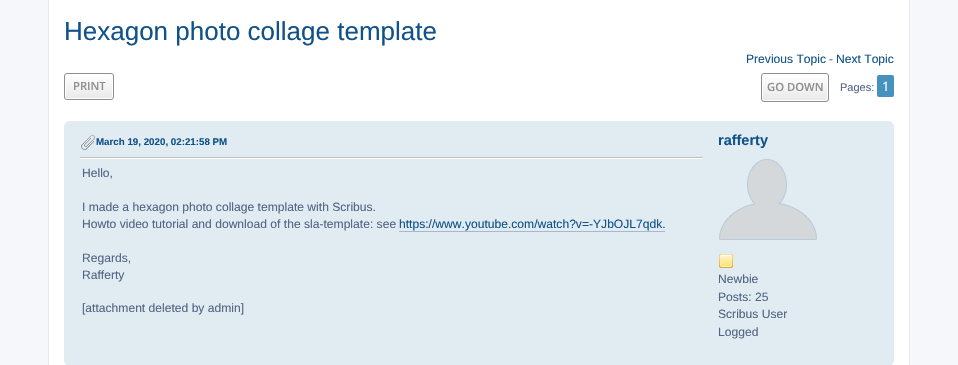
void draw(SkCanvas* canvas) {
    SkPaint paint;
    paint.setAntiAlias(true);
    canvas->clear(0xFFF5F7FA);
    paint.setColor(0xFFFFFFFF);
    canvas->drawRect(SkRect::MakeXYWH(48.5f, -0.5f, 861, 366), paint);
    paint.setStyle(SkPaint::kStroke_Style);
    paint.setStrokeWidth(1);
    paint.setColor(0xFFE6E9ED);
    canvas->drawRect(SkRect::MakeXYWH(48.5f, -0.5f, 861, 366), paint);
    SkFont font1(fontMgr->matchFamilyStyle("Liberation Sans", SkFontStyle::Normal()), 26);
    font1.setSubpixel(true);
    paint.setStyle(SkPaint::kFill_Style);
    paint.setColor(0xFF105289);
    canvas->drawString("Hexagon photo collage template", 64, 40, font1, paint);
    SkFont font2(fontMgr->matchFamilyStyle("Liberation Sans", SkFontStyle::Normal()), 12.1f);
    font2.setSubpixel(true);
    canvas->drawString("Previous Topic", 746, 63, font2, paint);
    paint.setColor(0xFF536482);
    canvas->drawString("-", 829, 63, font2, paint);
    paint.setColor(0xFF105289);
    canvas->drawString("Next Topic", 836, 63, font2, paint);
    canvas->save();
    canvas->clipPath(SkPathBuilder().moveTo(67, 73).lineTo(111, 73).cubicTo(112.5f, 73, 114, 74.5f, 114, 76).lineTo(114, 97).cubicTo(114, 98.5f, 112.5f, 100, 111, 100).lineTo(67, 100).cubicTo(65.5f, 100, 64, 98.5f, 64, 97).lineTo(64, 76).cubicTo(64, 74.5f, 65.5f, 73, 67, 73).close().detach(), true);
    {
        const SkColor colors[] = {0xFFFFFFFF, 0xFFE9E9E9};
        const float stops[] = {0, 1};
        const SkPoint ends[] = {{89, 74}, {89, 99}};
        paint.setShader(SkGradientShader::MakeLinear(ends, colors, stops, 2, SkTileMode::kClamp));
        paint.setAlpha(255);
    }
    canvas->drawRect(SkRect::MakeXYWH(64, 74, 50, 25), paint);
    canvas->restore();
    paint.setStyle(SkPaint::kStroke_Style);
    paint.setShader(nullptr);
    paint.setColor(0xFFFFFFFF);
    canvas->drawRoundRect(SkRect::MakeXYWH(65.5f, 74.5f, 47, 24), 1.5f, 1.5f, paint);
    paint.setColor(0xFF8F8F8F);
    canvas->drawRoundRect(SkRect::MakeXYWH(64.5f, 73.5f, 49, 26), 2.5f, 2.5f, paint);
    SkFont font3(fontMgr->matchFamilyStyle("Open Sans", SkFontStyle(600, SkFontStyle::kNormal_Width, SkFontStyle::kUpright_Slant)), 11.25f);
    font3.setSubpixel(true);
    paint.setStyle(SkPaint::kFill_Style);
    canvas->drawString("PRINT", 73, 90, font3, paint);
    canvas->save();
    canvas->clipPath(SkPathBuilder().moveTo(764, 73).lineTo(826, 73).cubicTo(827.5f, 73, 829, 74.5f, 829, 76).lineTo(829, 99).cubicTo(829, 100.5f, 827.5f, 102, 826, 102).lineTo(764, 102).cubicTo(762.5f, 102, 761, 100.5f, 761, 99).lineTo(761, 76).cubicTo(761, 74.5f, 762.5f, 73, 764, 73).close().detach(), true);
    {
        const SkColor colors[] = {0xFFFFFFFF, 0xFFE9E9E9};
        const float stops[] = {0, 1};
        const SkPoint ends[] = {{795, 74}, {795, 101}};
        paint.setShader(SkGradientShader::MakeLinear(ends, colors, stops, 2, SkTileMode::kClamp));
        paint.setAlpha(255);
    }
    canvas->drawRect(SkRect::MakeXYWH(761, 74, 68, 27), paint);
    canvas->restore();
    paint.setStyle(SkPaint::kStroke_Style);
    paint.setShader(nullptr);
    paint.setColor(0xFFFFFFFF);
    canvas->drawRoundRect(SkRect::MakeXYWH(762.5f, 74.5f, 65, 26), 1.5f, 1.5f, paint);
    paint.setColor(0xFF8F8F8F);
    canvas->drawRoundRect(SkRect::MakeXYWH(761.5f, 73.5f, 67, 28), 2.5f, 2.5f, paint);
    paint.setStyle(SkPaint::kFill_Style);
    canvas->drawString("GO DOWN", 767, 91, font3, paint);
    SkFont font4(fontMgr->matchFamilyStyle("Liberation Sans", SkFontStyle::Normal()), 11);
    font4.setSubpixel(true);
    paint.setColor(0xFF536482);
    canvas->drawString("Pages:", 840, 91, font4, paint);
    paint.setColor(0xFF4692BF);
    canvas->drawRoundRect(SkRect::MakeXYWH(877, 75, 17, 22), 2, 2, paint);
    SkFont font5(fontMgr->matchFamilyStyle("Open Sans", SkFontStyle::Normal()), 13);
    font5.setSubpixel(true);
    paint.setColor(0xFFFFFFFF);
    canvas->drawString("1", 882, 91, font5, paint);
    paint.setColor(0xFFE1EBF2);
    canvas->drawRoundRect(SkRect::MakeXYWH(64, 121, 830, 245), 6, 6, paint);
    canvas->drawImageRect(SkImages::DeferredFromEncodedData(SkData::MakeFromFileName("img1.png")), SkRect::MakeXYWH(80, 135, 15, 15), SkSamplingOptions());
    SkFont font6(fontMgr->matchFamilyStyle("Liberation Sans", SkFontStyle::Bold()), 9.75f);
    font6.setSubpixel(true);
    paint.setColor(0xFF105289);
    canvas->drawString("March 19, 2020, 02:21:58 PM", 96, 145, font6, paint);
    paint.setColor(0xFFFFFFFF);
    canvas->drawRect(SkRect::MakeXYWH(80, 158, 623, 1), paint);
    paint.setColor(0xFFBFBFBF);
    canvas->drawRect(SkRect::MakeXYWH(80, 157, 623, 1), paint);
    paint.setColor(0xFF536482);
    canvas->drawString("Hello,", 82, 177, font2, paint);
    canvas->drawString("I made a hexagon photo collage template with Scribus.", 82, 211, font2, paint);
    canvas->drawString("Howto video tutorial and download of the sla-template: see", 82, 228, font2, paint);
    paint.setColor(0xFF105289);
    canvas->drawString("https://www.youtube.com/watch?v=-YJbOJL7qdk.", 399, 228, font2, paint);
    paint.setColor(0xFFA8B6CF);
    canvas->drawRect(SkRect::MakeXYWH(399, 231, 266, 1), paint);
    paint.setColor(0xFF536482);
    canvas->drawString("Regards,", 82, 262, font2, paint);
    canvas->drawString("Rafferty", 82, 279, font2, paint);
    canvas->drawString("[attachment deleted by admin]", 82, 312, font2, paint);
    SkFont font7(fontMgr->matchFamilyStyle("Liberation Sans", SkFontStyle::Bold()), 14.5f);
    font7.setSubpixel(true);
    paint.setColor(0xFF105289);
    canvas->drawString("rafferty", 718, 145, font7, paint);
    canvas->drawImageRect(SkImages::DeferredFromEncodedData(SkData::MakeFromFileName("img2.png")), SkRect::MakeXYWH(719, 159, 98, 81), SkSamplingOptions());
    canvas->drawImageRect(SkImages::DeferredFromEncodedData(SkData::MakeFromFileName("img3.png")), SkRect::MakeXYWH(719, 254, 14, 14), SkSamplingOptions());
    paint.setColor(0xFF536482);
    canvas->drawString("Newbie", 718, 283, font2, paint);
    canvas->drawString("Posts: 25", 718, 301, font2, paint);
    canvas->drawString("Scribus User", 718, 318, font2, paint);
    canvas->drawString("Logged", 718, 336, font2, paint);
}
